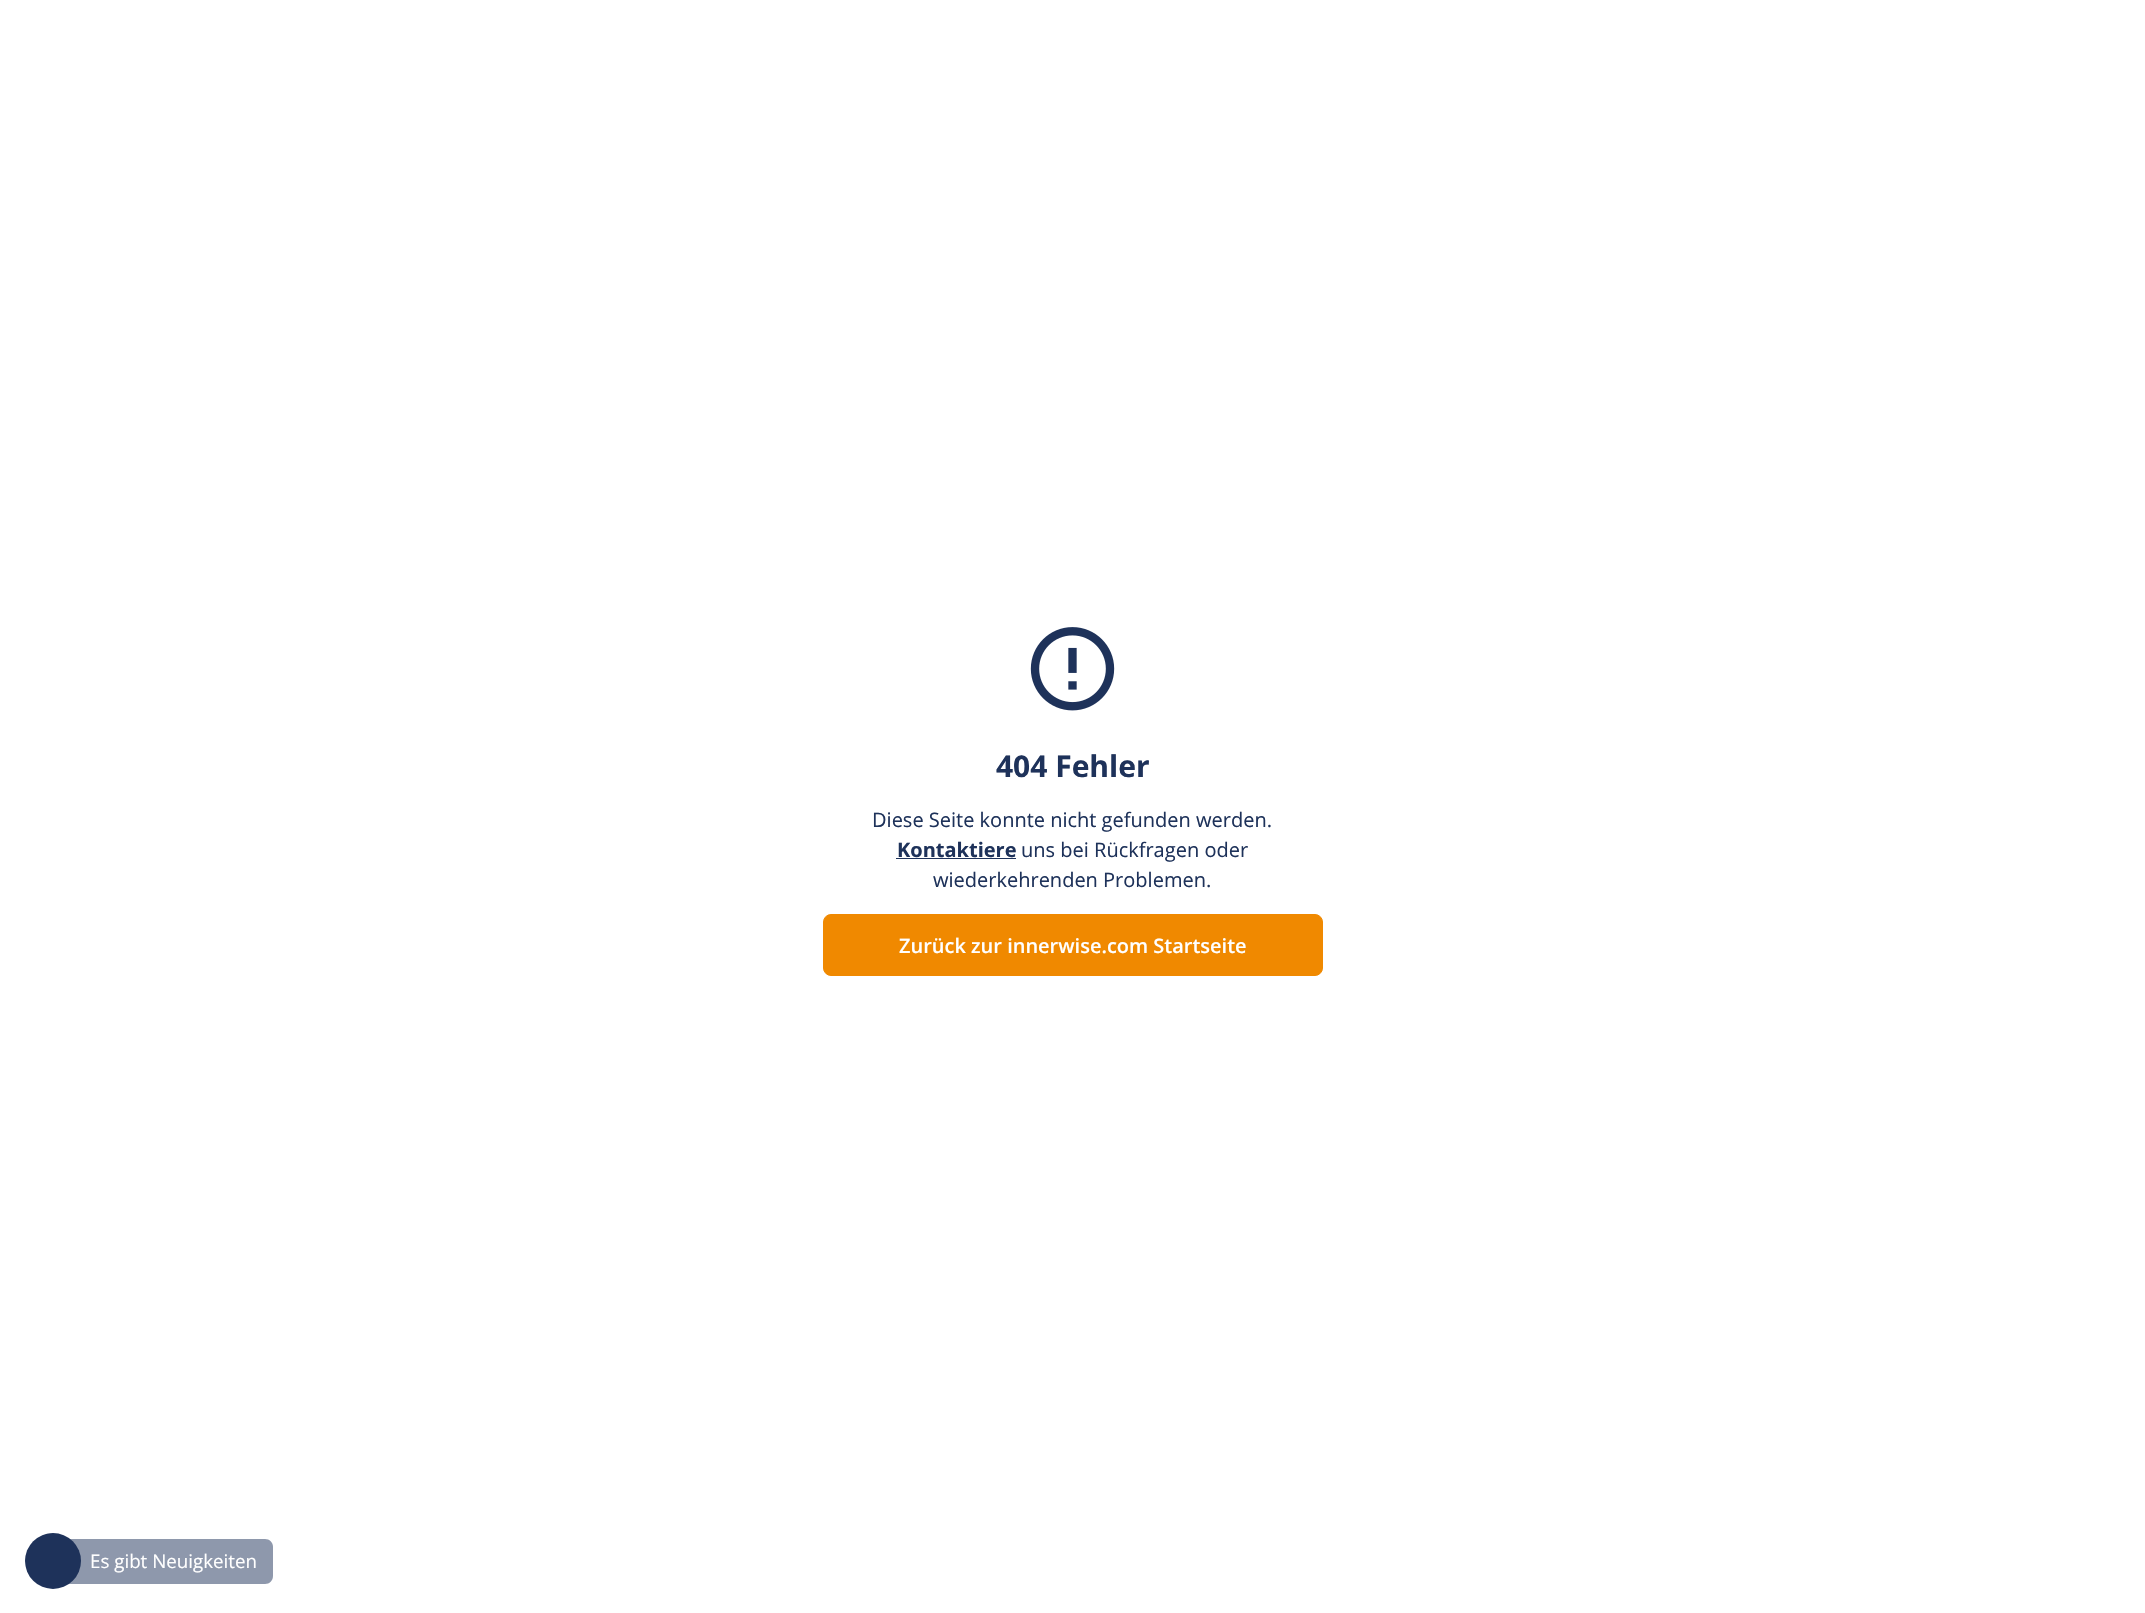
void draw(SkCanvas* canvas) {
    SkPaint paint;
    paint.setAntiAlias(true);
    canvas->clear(0xFFFFFFFF);
    canvas->drawImageRect(SkImages::DeferredFromEncodedData(SkData::MakeFromFileName("img1.png")), SkRect::MakeXYWH(1030, 627, 85, 84), SkSamplingOptions());
    SkFont font1(fontMgr->matchFamilyStyle("Open Sans", SkFontStyle::Bold()), 30);
    font1.setSubpixel(true);
    paint.setColor(0xFF1E325A);
    canvas->drawString("404 Fehler", 996, 777, font1, paint);
    SkFont font2(fontMgr->matchFamilyStyle("Open Sans", SkFontStyle::Normal()), 20);
    font2.setSubpixel(true);
    canvas->drawString("Diese Seite konnte nicht gefunden werden.", 872, 827, font2, paint);
    SkFont font3(fontMgr->matchFamilyStyle("Open Sans", SkFontStyle::Bold()), 20);
    font3.setSubpixel(true);
    canvas->drawString("Kontaktiere", 897, 857, font3, paint);
    canvas->drawRect(SkRect::MakeXYWH(896, 858, 120, 1), paint);
    canvas->drawString("uns bei Rückfragen oder", 1021, 857, font2, paint);
    canvas->drawString("wiederkehrenden Problemen.", 933, 887, font2, paint);
    paint.setColor(0xFFF08900);
    canvas->drawRoundRect(SkRect::MakeXYWH(823.5f, 914.5f, 499, 61), 7.5f, 7.5f, paint);
    paint.setStyle(SkPaint::kStroke_Style);
    paint.setStrokeWidth(1);
    canvas->drawRoundRect(SkRect::MakeXYWH(823.5f, 914.5f, 499, 61), 7.5f, 7.5f, paint);
    SkFont font4(fontMgr->matchFamilyStyle("Open Sans", SkFontStyle(600, SkFontStyle::kNormal_Width, SkFontStyle::kUpright_Slant)), 20);
    font4.setSubpixel(true);
    paint.setStyle(SkPaint::kFill_Style);
    paint.setColor(0xFFFFFFFF);
    canvas->drawString("Zurück zur innerwise.com Startseite", 899, 953, font4, paint);
    paint.setColor(0xFF8E98AC);
    canvas->drawPath(SkPathBuilder().moveTo(55, 1539).lineTo(265, 1539).cubicTo(269.5f, 1539, 273, 1542.5f, 273, 1547).lineTo(273, 1576).cubicTo(273, 1580.5f, 269.5f, 1584, 265, 1584).lineTo(55, 1584).close().detach(), paint);
    canvas->save();
    canvas->clipPath(SkPathBuilder().moveTo(50, 1533).lineTo(265, 1533).cubicTo(269.5f, 1533, 273, 1536.5f, 273, 1541).lineTo(273, 1581).cubicTo(273, 1585.5f, 269.5f, 1589, 265, 1589).lineTo(50, 1589).cubicTo(36, 1589, 25, 1578, 25, 1564).lineTo(25, 1558).cubicTo(25, 1544, 36, 1533, 50, 1533).close().detach(), true);
    paint.setColor(0xFF1E325A);
    canvas->drawCircle(53, 1561, 28, paint);
    canvas->restore();
    SkFont font5(fontMgr->matchFamilyStyle("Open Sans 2", SkFontStyle::Normal()), 18.75f);
    font5.setSubpixel(true);
    paint.setColor(0xFFFFFFFF);
    canvas->drawString("Es gibt Neuigkeiten", 90, 1568, font5, paint);
}
